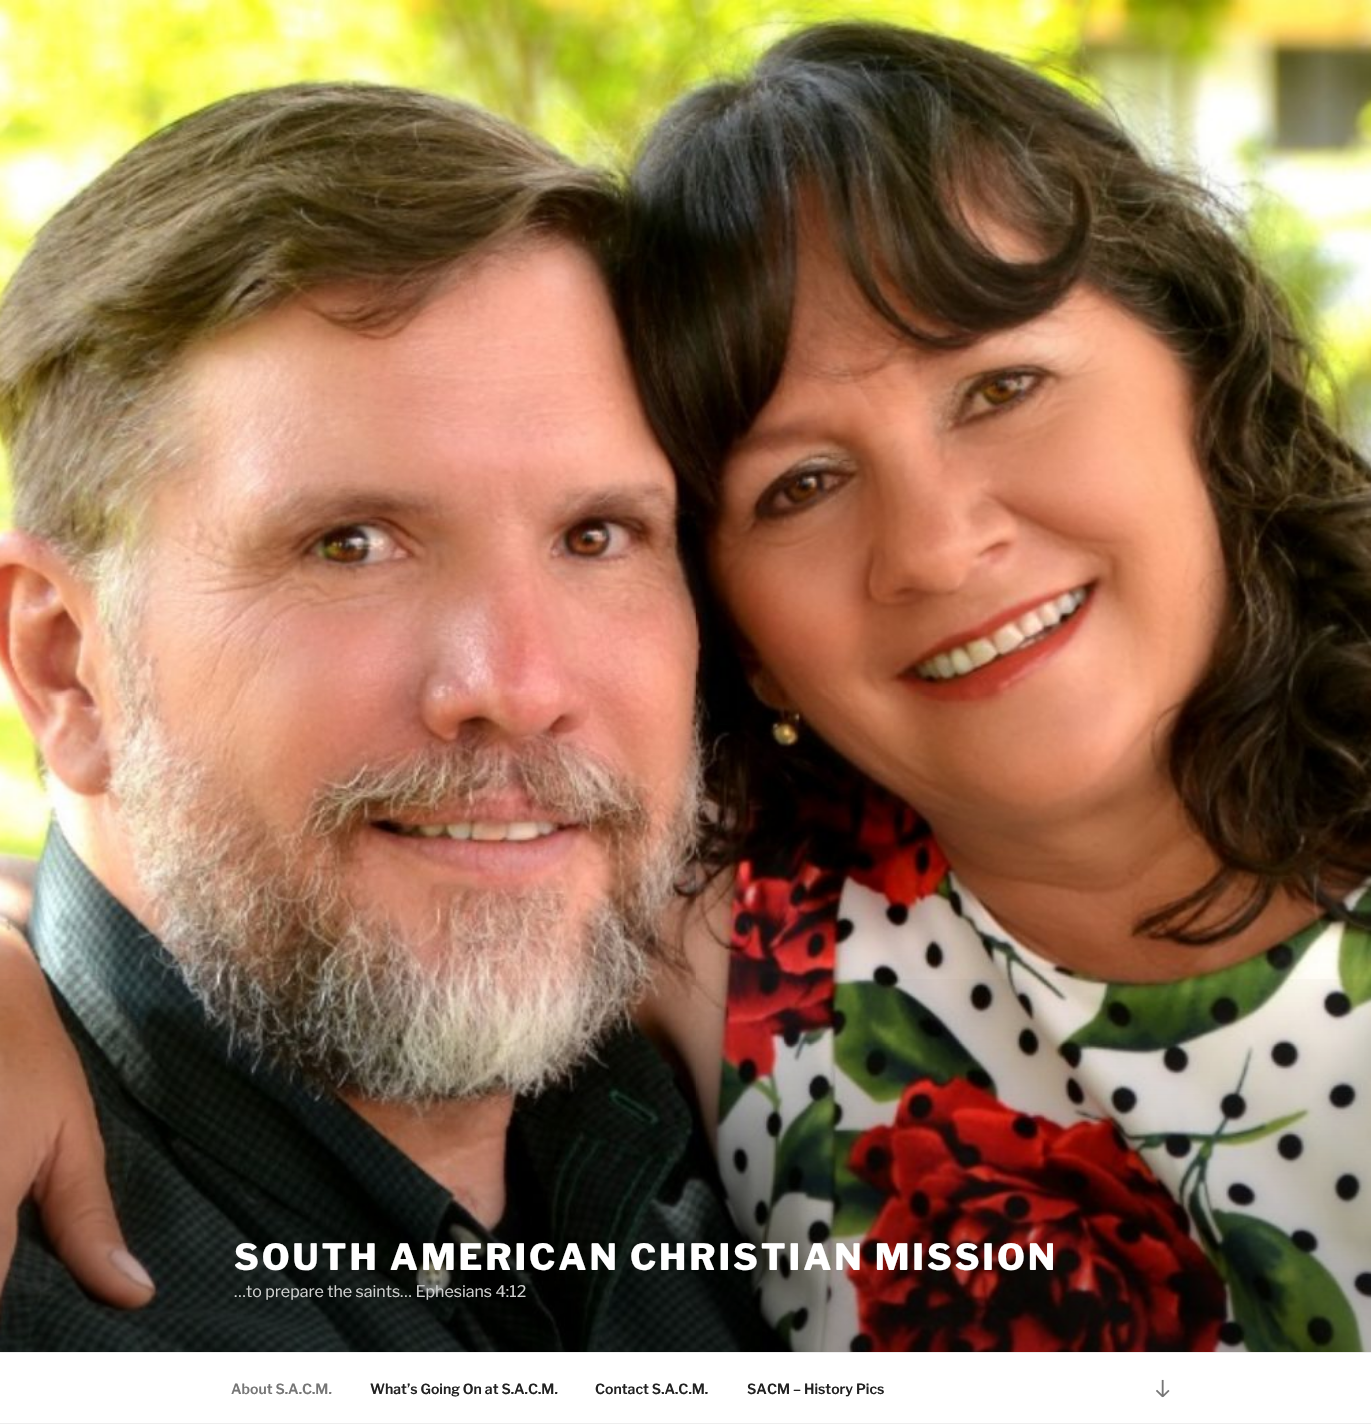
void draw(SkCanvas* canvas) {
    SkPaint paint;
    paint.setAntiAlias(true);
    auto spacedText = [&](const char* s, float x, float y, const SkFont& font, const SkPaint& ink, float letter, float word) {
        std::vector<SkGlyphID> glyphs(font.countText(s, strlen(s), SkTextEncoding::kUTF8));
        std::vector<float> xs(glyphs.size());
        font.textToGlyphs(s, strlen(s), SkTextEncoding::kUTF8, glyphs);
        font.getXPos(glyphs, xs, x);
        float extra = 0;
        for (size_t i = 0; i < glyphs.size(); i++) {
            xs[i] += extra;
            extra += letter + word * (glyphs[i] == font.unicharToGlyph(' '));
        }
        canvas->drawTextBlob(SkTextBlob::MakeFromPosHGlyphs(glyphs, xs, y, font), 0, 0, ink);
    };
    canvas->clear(0xFFFFFFFF);
    canvas->drawImageRect(SkImages::DeferredFromEncodedData(SkData::MakeFromFileName("img1.png")), SkRect::MakeXYWH(0, 0, 1371, 1352), SkSamplingOptions());
    {
        const SkColor colors[] = {0x00000000, 0x4D000000, 0x4D000000};
        const float stops[] = {0, 0.75f, 1};
        const SkPoint ends[] = {{686, 954}, {686, 1424}};
        paint.setShader(SkGradientShader::MakeLinear(ends, colors, stops, 3, SkTileMode::kClamp));
        paint.setAlpha(255);
    }
    canvas->drawRect(SkRect::MakeXYWH(0, 979, 1371, 373), paint);
    SkFont font1(fontMgr->matchFamilyStyle("Libre Franklin", SkFontStyle(100, SkFontStyle::kNormal_Width, SkFontStyle::kUpright_Slant)), 36);
    font1.setSubpixel(true);
    paint.setShader(nullptr);
    paint.setColor(0xFFFFFFFF);
    spacedText("SOUTH AMERICAN CHRISTIAN MISSION", 234, 1270, font1, paint, 2.9f, 0);
    SkFont font2(fontMgr->matchFamilyStyle("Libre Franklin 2", SkFontStyle(100, SkFontStyle::kNormal_Width, SkFontStyle::kUpright_Slant)), 16);
    font2.setSubpixel(true);
    paint.setColor(0xFFD0D1D0);
    canvas->drawString("…to prepare the saints… Ephesians 4:12", 234, 1297, font2, paint);
    paint.setColor(0xFFEEEEEE);
    canvas->drawRect(SkRect::MakeXYWH(0, 1352, 1371, 1), paint);
    canvas->drawRect(SkRect::MakeXYWH(0, 1423, 1371, 1), paint);
    SkFont font3(fontMgr->matchFamilyStyle("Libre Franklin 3", SkFontStyle(100, SkFontStyle::kNormal_Width, SkFontStyle::kUpright_Slant)), 14);
    font3.setSubpixel(true);
    paint.setColor(0xFF767676);
    canvas->drawString("About S.A.C.M.", 231, 1394, font3, paint);
    paint.setColor(0xFF222222);
    canvas->drawString("What’s Going On at S.A.C.M.", 370, 1394, font3, paint);
    canvas->drawString("Contact S.A.C.M.", 595, 1394, font3, paint);
    canvas->drawString("SACM – History Pics", 747, 1394, font3, paint);
    canvas->drawImageRect(SkImages::DeferredFromEncodedData(SkData::MakeFromFileName("img2.png")), SkRect::MakeXYWH(1156, 1379, 14, 19), SkSamplingOptions());
}
